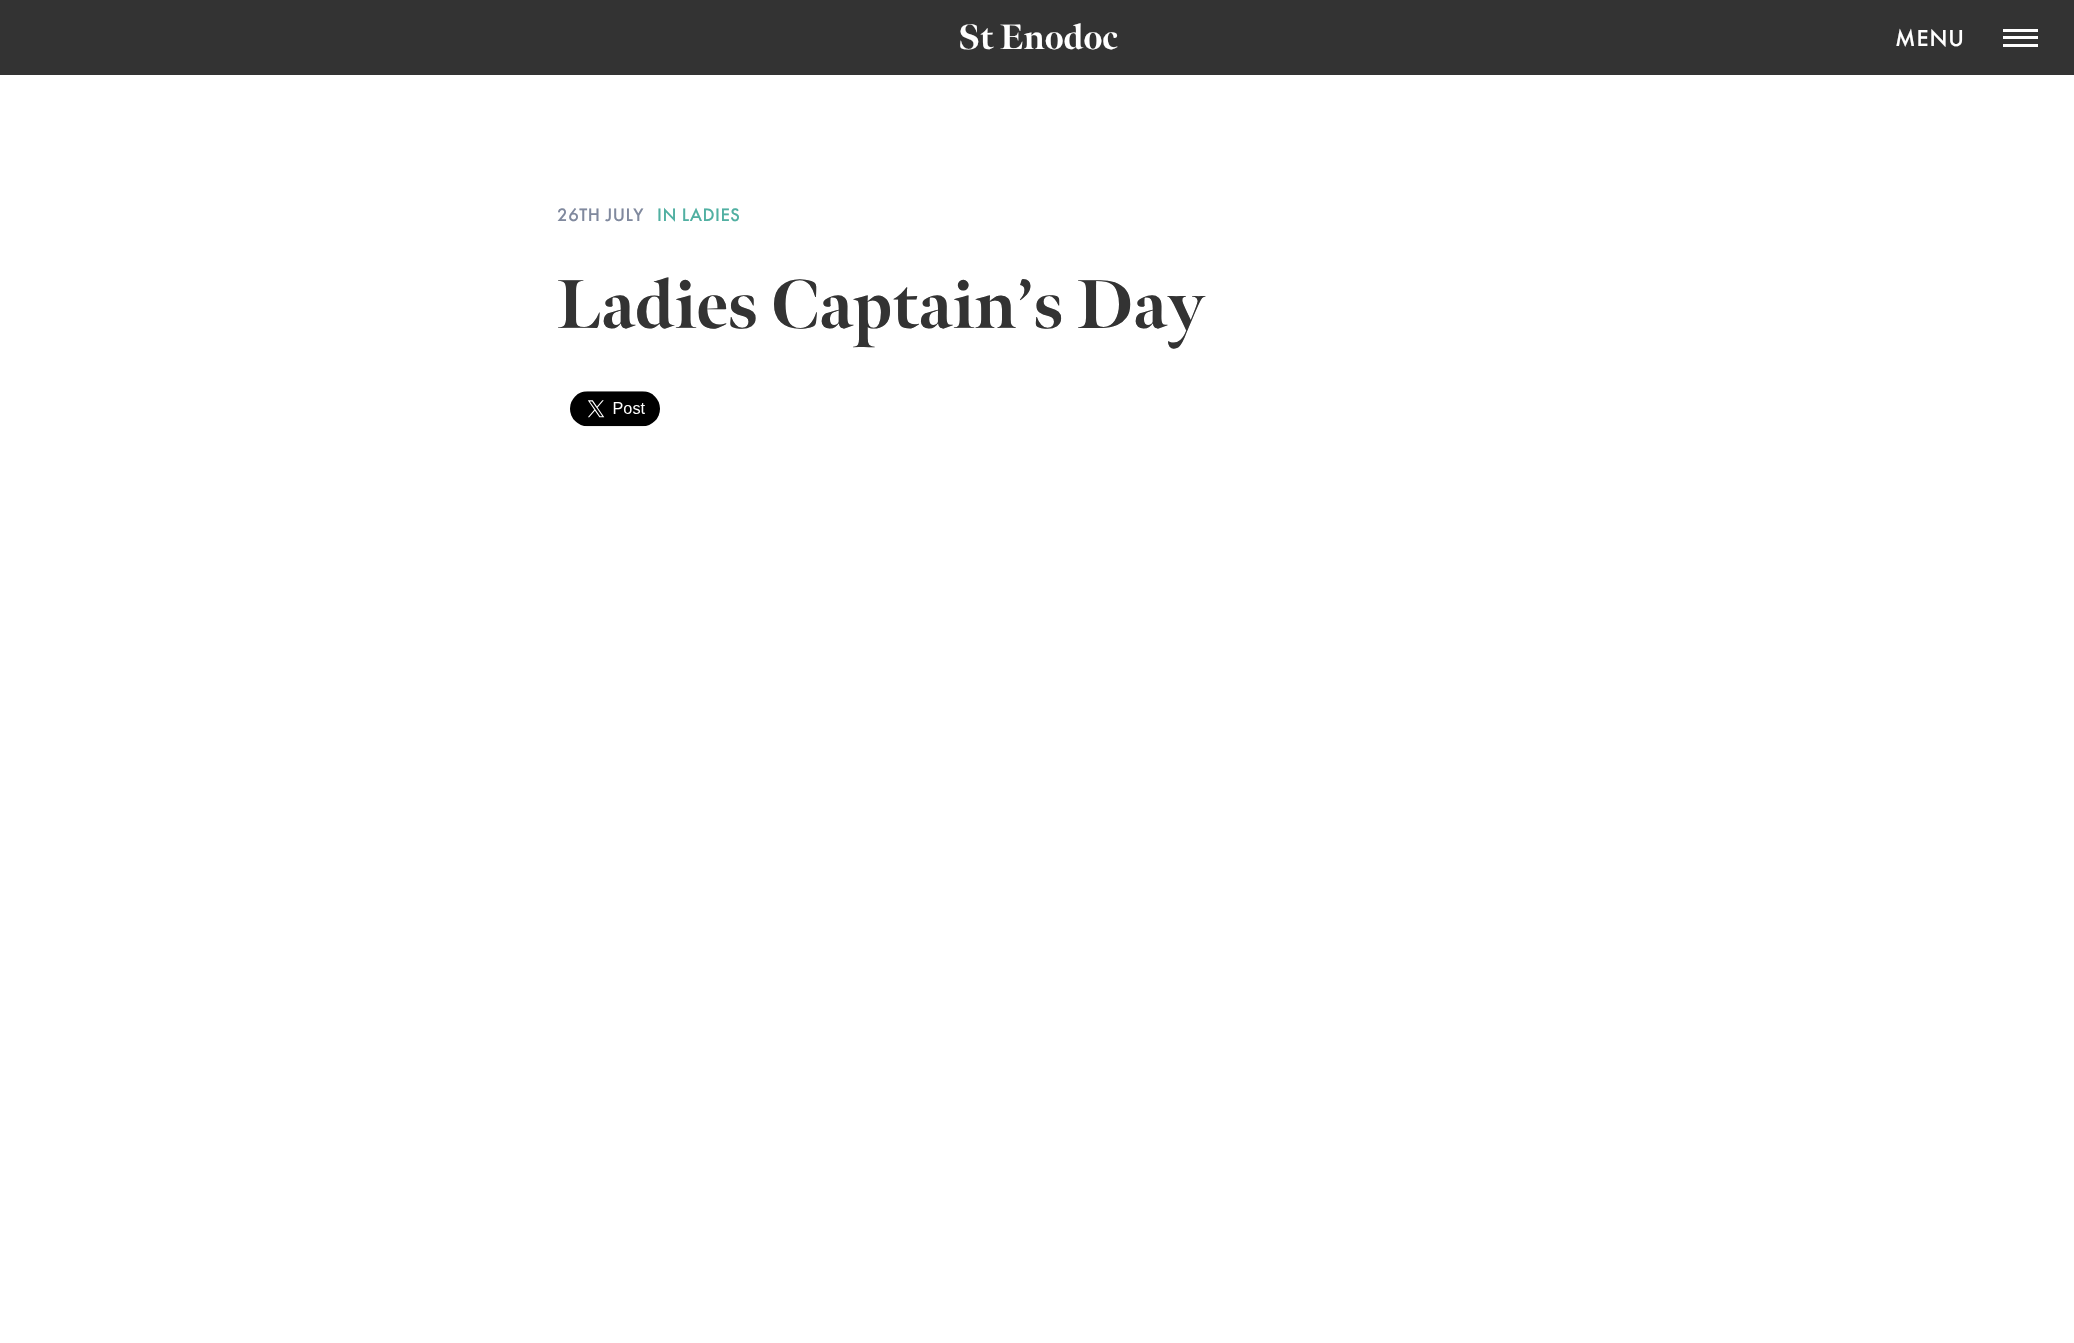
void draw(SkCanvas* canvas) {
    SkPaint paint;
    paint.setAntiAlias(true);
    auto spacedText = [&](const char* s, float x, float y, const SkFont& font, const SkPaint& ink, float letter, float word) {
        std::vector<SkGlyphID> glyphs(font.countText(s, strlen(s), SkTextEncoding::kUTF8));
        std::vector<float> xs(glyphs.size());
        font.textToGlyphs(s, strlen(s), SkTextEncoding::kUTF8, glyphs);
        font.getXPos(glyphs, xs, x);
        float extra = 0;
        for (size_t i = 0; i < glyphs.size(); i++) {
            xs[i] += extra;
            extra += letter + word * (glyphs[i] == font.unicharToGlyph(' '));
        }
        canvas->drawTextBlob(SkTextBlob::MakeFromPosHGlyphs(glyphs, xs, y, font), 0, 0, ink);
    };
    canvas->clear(0xFFFFFFFF);
    paint.setColor(0xFF333333);
    canvas->drawRect(SkRect::MakeXYWH(0, 0, 2074, 75), paint);
    SkFont font1(fontMgr->matchFamilyStyle("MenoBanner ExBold", SkFontStyle(800, SkFontStyle::kNormal_Width, SkFontStyle::kUpright_Slant)), 35);
    font1.setSubpixel(true);
    paint.setColor(0xFFFFFFFF);
    canvas->drawString("St Enodoc", 958, 49, font1, paint);
    SkFont font2(fontMgr->matchFamilyStyle("Futura PT", SkFontStyle(500, SkFontStyle::kNormal_Width, SkFontStyle::kUpright_Slant)), 24);
    font2.setSubpixel(true);
    spacedText("MENU", 1895, 46, font2, paint, 1, 0);
    canvas->drawRect(SkRect::MakeXYWH(2003, 36, 35, 3), paint);
    canvas->drawRect(SkRect::MakeXYWH(2003, 29, 35, 3), paint);
    canvas->drawRect(SkRect::MakeXYWH(2003, 44, 35, 3), paint);
    SkFont font3(fontMgr->matchFamilyStyle("Futura PT", SkFontStyle(500, SkFontStyle::kNormal_Width, SkFontStyle::kUpright_Slant)), 18.75f);
    font3.setSubpixel(true);
    paint.setColor(0xFF80899E);
    spacedText("26TH JULY", 557, 221, font3, paint, 0.5f, 0);
    paint.setColor(0xFF51B0A2);
    spacedText("IN LADIES", 657, 221, font3, paint, 0.5f, 0);
    SkFont font4(fontMgr->matchFamilyStyle("MenoBanner ExBold", SkFontStyle(800, SkFontStyle::kNormal_Width, SkFontStyle::kUpright_Slant)), 68.75f);
    font4.setSubpixel(true);
    paint.setColor(0xFF333333);
    canvas->drawString("Ladies Captain’s Day", 557, 328, font4, paint);
    canvas->drawImageRect(SkImages::DeferredFromEncodedData(SkData::MakeFromFileName("img1.png")), SkRect::MakeXYWH(570, 391, 90, 36), SkSamplingOptions());
}
